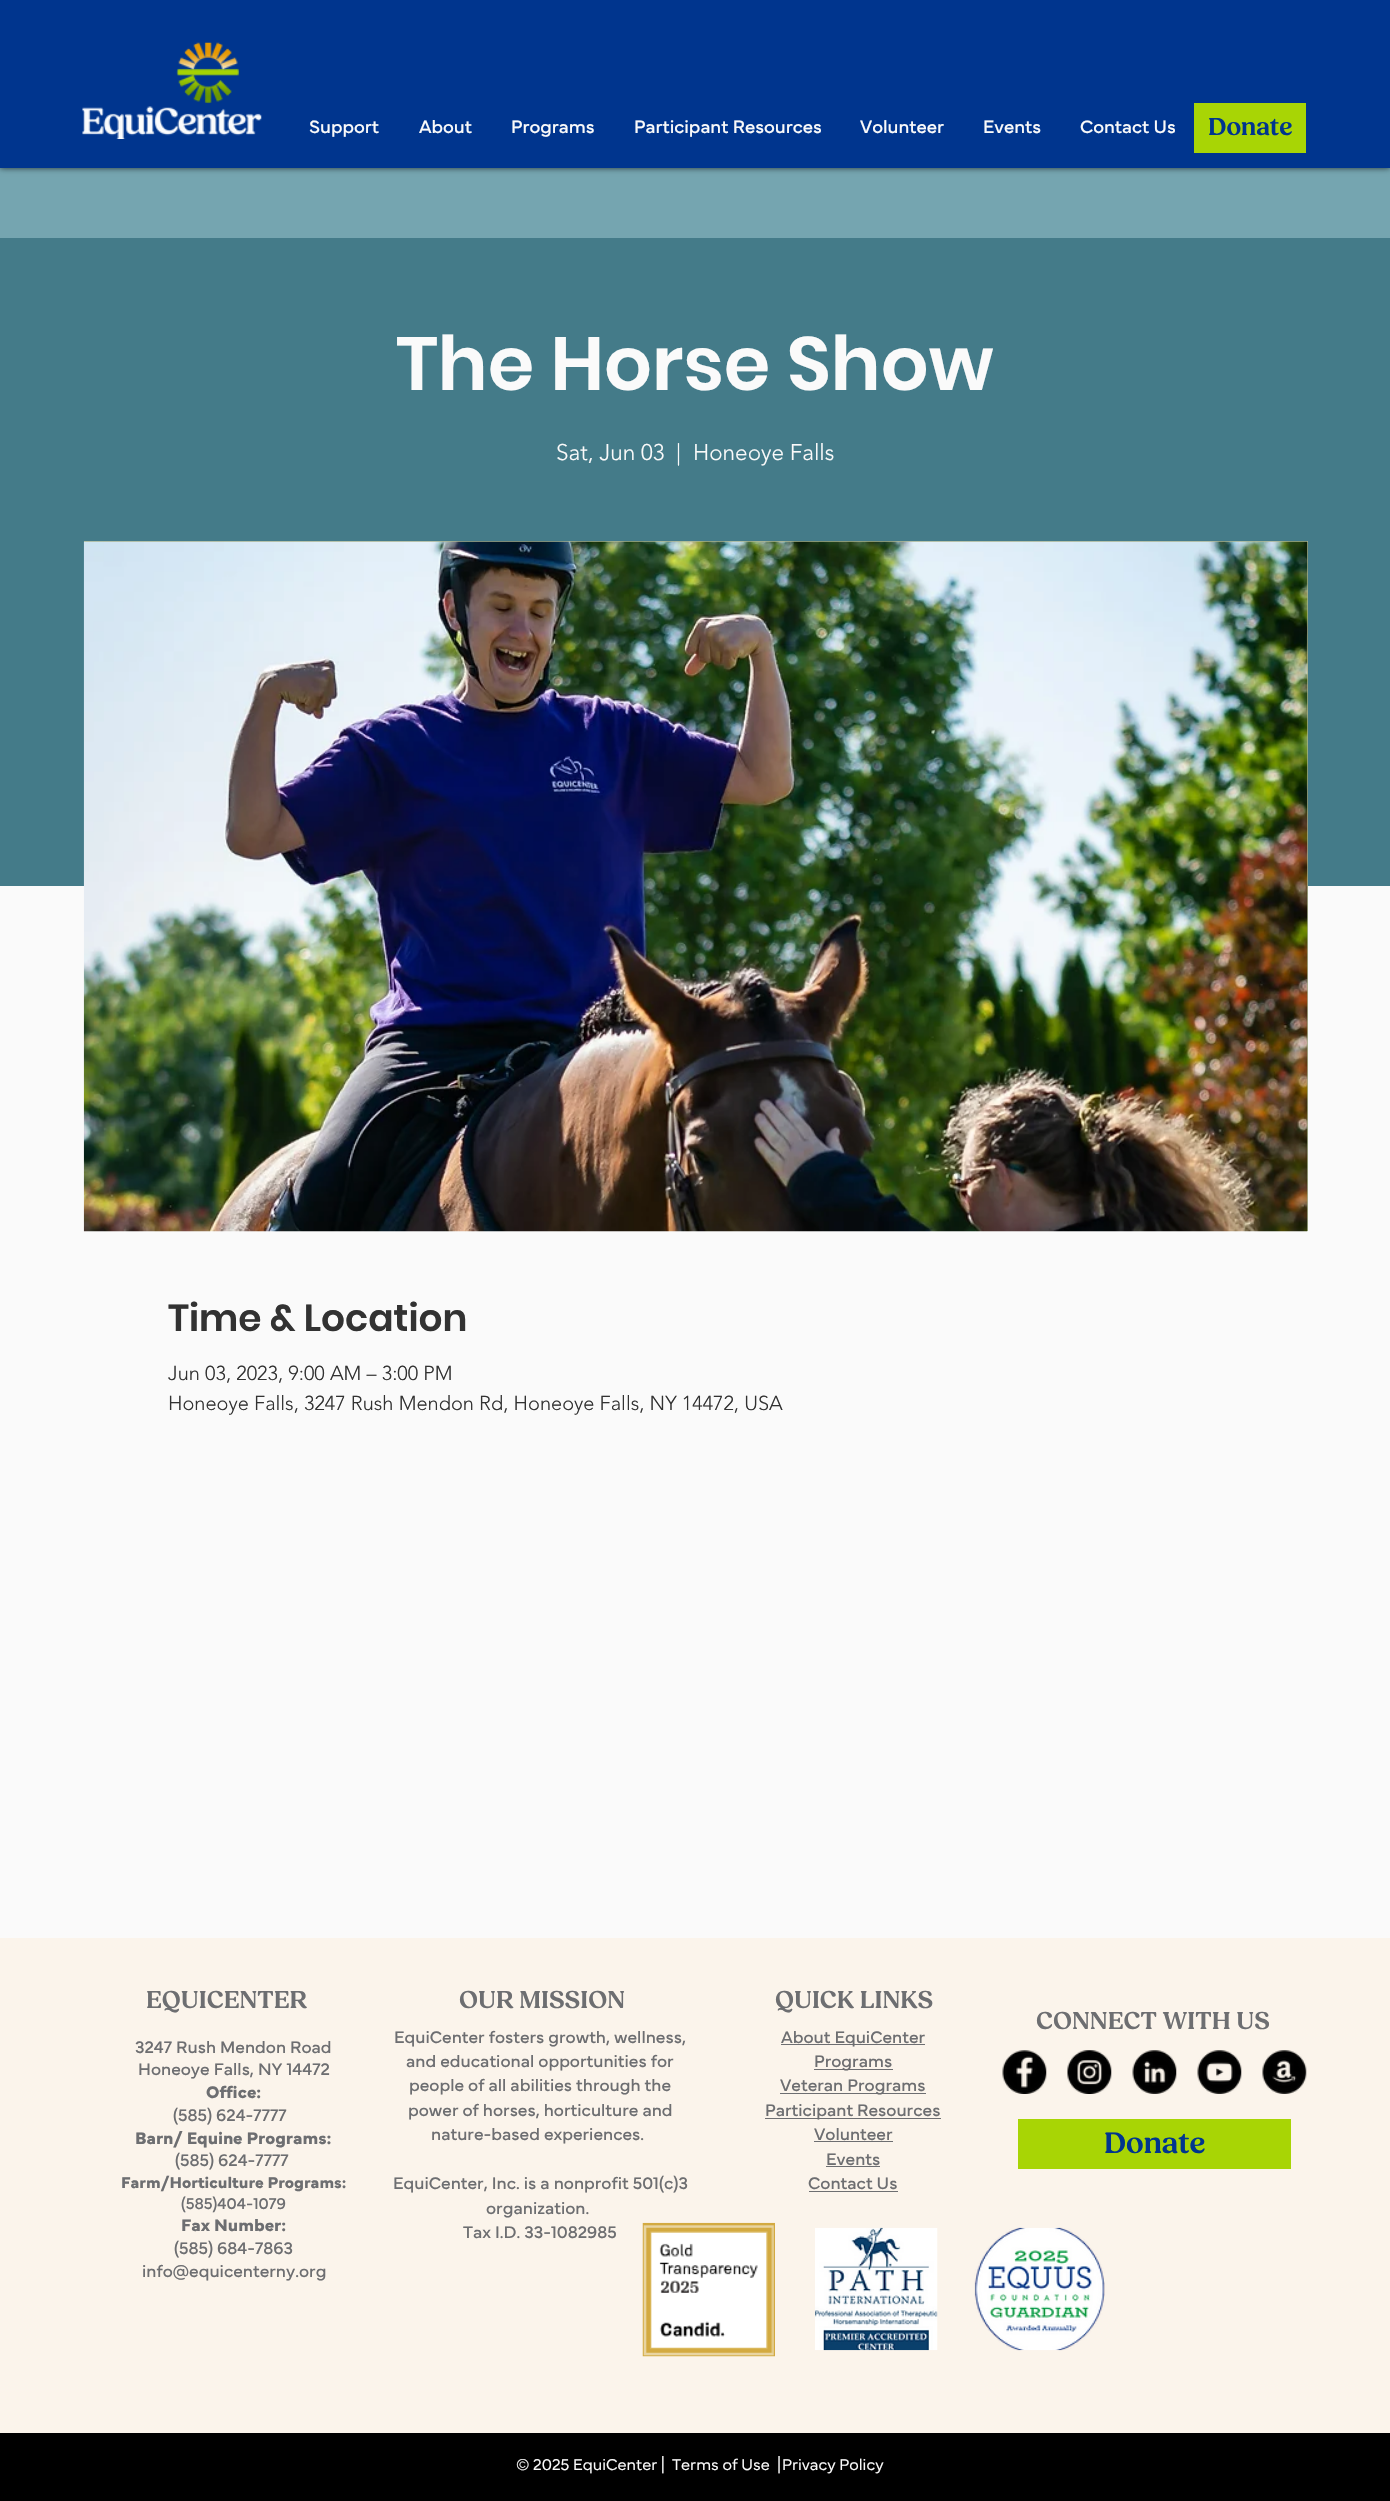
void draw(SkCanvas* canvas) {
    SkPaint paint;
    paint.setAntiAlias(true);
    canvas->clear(0xFF75A5B0);
    paint.setColor(0xB3000000);
    paint.setMaskFilter(SkMaskFilter::MakeBlur(kNormal_SkBlurStyle, 3));
    canvas->drawRect(SkRect::MakeXYWH(0, 0, 1390, 168), paint);
    paint.setMaskFilter(nullptr);
    paint.setColor(0xFF00358E);
    canvas->drawRect(SkRect::MakeXYWH(0, 0, 1390, 168), paint);
    canvas->drawImageRect(SkImages::DeferredFromEncodedData(SkData::MakeFromFileName("img1.png")), SkRect::MakeXYWH(82, 42, 180, 97), SkSamplingOptions());
    SkFont font1(fontMgr->matchFamilyStyle("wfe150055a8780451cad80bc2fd", SkFontStyle::Normal()), 18.75f);
    font1.setSubpixel(true);
    paint.setColor(0xFFFAFAFA);
    canvas->drawString("Support", 309, 133, font1, paint);
    canvas->drawString("About", 419, 133, font1, paint);
    canvas->drawString("Programs", 511, 133, font1, paint);
    canvas->drawString("Participant Resources", 634, 133, font1, paint);
    canvas->drawString("Volunteer", 860, 133, font1, paint);
    canvas->drawString("Events", 983, 133, font1, paint);
    canvas->drawString("Contact Us", 1080, 133, font1, paint);
    paint.setColor(0xFFA8D505);
    canvas->drawRect(SkRect::MakeXYWH(1194, 103, 112, 50), paint);
    SkFont font2(fontMgr->matchFamilyStyle("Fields", SkFontStyle(600, SkFontStyle::kNormal_Width, SkFontStyle::kUpright_Slant)), 25);
    font2.setSubpixel(true);
    paint.setColor(0xFF00358E);
    canvas->drawString("Donate", 1208, 135, font2, paint);
    paint.setColor(0xFF447B89);
    canvas->drawRect(SkRect::MakeXYWH(0, 238, 1390, 648), paint);
    SkFont font3(fontMgr->matchFamilyStyle("Poppins", SkFontStyle(600, SkFontStyle::kNormal_Width, SkFontStyle::kUpright_Slant)), 75);
    font3.setSubpixel(true);
    paint.setColor(0xFFFAFAFA);
    canvas->drawString("The Horse Show", 396, 390, font3, paint);
    SkFont font4(fontMgr->matchFamilyStyle("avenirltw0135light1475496", SkFontStyle(300, SkFontStyle::kNormal_Width, SkFontStyle::kUpright_Slant)), 22.5f);
    font4.setSubpixel(true);
    canvas->drawString("Sat, Jun 03", 556, 460, font4, paint);
    canvas->drawString("|", 676, 460, font4, paint);
    canvas->drawString("Honeoye Falls", 693, 460, font4, paint);
    canvas->drawRect(SkRect::MakeXYWH(0, 886, 1390, 1052), paint);
    paint.setColor(0xFFA7B392);
    canvas->drawRect(SkRect::MakeXYWH(84, 541, 1224, 690), paint);
    canvas->drawImageRect(SkImages::DeferredFromEncodedData(SkData::MakeFromFileName("img2.png")), SkRect::MakeXYWH(83, 541, 1225, 691), SkSamplingOptions());
    SkFont font5(fontMgr->matchFamilyStyle("Poppins", SkFontStyle(600, SkFontStyle::kNormal_Width, SkFontStyle::kUpright_Slant)), 37.5f);
    font5.setSubpixel(true);
    paint.setColor(0xFF323232);
    canvas->drawString("Time & Location", 168, 1331, font5, paint);
    SkFont font6(fontMgr->matchFamilyStyle("avenirltw0135light1475496", SkFontStyle(300, SkFontStyle::kNormal_Width, SkFontStyle::kUpright_Slant)), 20);
    font6.setSubpixel(true);
    canvas->drawString("Jun 03, 2023, 9:00 AM – 3:00 PM", 168, 1380, font6, paint);
    canvas->drawString("Honeoye Falls, 3247 Rush Mendon Rd, Honeoye Falls, NY 14472, USA", 168, 1410, font6, paint);
    paint.setColor(0xFFFBF4EB);
    canvas->drawRect(SkRect::MakeXYWH(0, 1938, 1390, 495), paint);
    paint.setColor(0xFF6D6E71);
    canvas->drawString("EQUICENTER", 146, 2008, font2, paint);
    SkFont font7(fontMgr->matchFamilyStyle("wfe150055a8780451cad80bc2fd", SkFontStyle::Normal()), 17.5f);
    font7.setSubpixel(true);
    canvas->drawString("3247 Rush Mendon Road", 135, 2053, font7, paint);
    canvas->drawString("Honeoye Falls, NY 14472", 138, 2075, font7, paint);
    SkFont font8(fontMgr->matchFamilyStyle("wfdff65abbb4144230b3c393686", SkFontStyle::Bold()), 17.5f);
    font8.setSubpixel(true);
    canvas->drawString("Office:", 206, 2098, font8, paint);
    canvas->drawString("(585) 624-7777", 173, 2121, font7, paint);
    canvas->drawString("Barn/ Equine Programs:", 135, 2144, font8, paint);
    canvas->drawString("(585) 624-7777", 175, 2166, font7, paint);
    SkFont font9(fontMgr->matchFamilyStyle("wfdff65abbb4144230b3c393686", SkFontStyle::Bold()), 16.25f);
    font9.setSubpixel(true);
    canvas->drawString("Farm/Horticulture Programs:", 121, 2188, font9, paint);
    SkFont font10(fontMgr->matchFamilyStyle("wfe150055a8780451cad80bc2fd", SkFontStyle::Normal()), 16.25f);
    font10.setSubpixel(true);
    canvas->drawString("(585)404-1079", 181, 2209, font10, paint);
    canvas->drawString("Fax Number:", 181, 2231, font8, paint);
    canvas->drawString("(585) 684-7863", 174, 2254, font7, paint);
    canvas->drawString("info@equicenterny.org", 142, 2277, font7, paint);
    canvas->drawString("OUR MISSION", 459, 2008, font2, paint);
    canvas->drawString("EquiCenter fosters growth, wellness,", 394, 2043, font7, paint);
    canvas->drawString("and educational opportunities for", 406, 2067, font7, paint);
    canvas->drawString("people of all abilities through the", 409, 2091, font7, paint);
    canvas->drawString("power of horses, horticulture and", 408, 2116, font7, paint);
    canvas->drawString("nature-based experiences.", 431, 2140, font7, paint);
    canvas->drawString("EquiCenter, Inc. is a nonprofit 501(c)3", 393, 2189, font7, paint);
    canvas->drawString("organization.", 486, 2214, font7, paint);
    canvas->drawString("Tax I.D. 33-1082985", 463, 2238, font7, paint);
    canvas->drawString("QUICK LINKS", 775, 2008, font2, paint);
    canvas->drawRect(SkRect::MakeXYWH(781, 2044, 144, 1), paint);
    canvas->drawString("About EquiCenter", 781, 2043, font7, paint);
    canvas->drawRect(SkRect::MakeXYWH(814, 2069, 79, 1), paint);
    canvas->drawString("Programs", 814, 2067, font7, paint);
    canvas->drawRect(SkRect::MakeXYWH(780, 2093, 146, 1), paint);
    canvas->drawString("Veteran Programs", 780, 2091, font7, paint);
    canvas->drawRect(SkRect::MakeXYWH(765, 2118, 176, 1), paint);
    canvas->drawString("Participant Resources", 765, 2116, font7, paint);
    canvas->drawString("Volunteer", 814, 2140, font7, paint);
    canvas->drawRect(SkRect::MakeXYWH(814, 2141, 79, 1), paint);
    canvas->drawString("Events", 826, 2165, font7, paint);
    canvas->drawRect(SkRect::MakeXYWH(826, 2166, 54, 1), paint);
    canvas->drawString("Contact Us", 808, 2189, font7, paint);
    canvas->drawRect(SkRect::MakeXYWH(809, 2191, 89, 1), paint);
    canvas->drawImageRect(SkImages::DeferredFromEncodedData(SkData::MakeFromFileName("img3.png")), SkRect::MakeXYWH(642, 2222, 133, 135), SkSamplingOptions());
    canvas->drawImageRect(SkImages::DeferredFromEncodedData(SkData::MakeFromFileName("img4.png")), SkRect::MakeXYWH(815, 2227, 123, 124), SkSamplingOptions());
    canvas->drawImageRect(SkImages::DeferredFromEncodedData(SkData::MakeFromFileName("img5.png")), SkRect::MakeXYWH(974, 2227, 131, 124), SkSamplingOptions());
    canvas->drawString("CONNECT WITH US", 1036, 2029, font2, paint);
    canvas->drawImageRect(SkImages::DeferredFromEncodedData(SkData::MakeFromFileName("img6.png")), SkRect::MakeXYWH(1002, 2050, 45, 44), SkSamplingOptions());
    canvas->drawImageRect(SkImages::DeferredFromEncodedData(SkData::MakeFromFileName("img7.png")), SkRect::MakeXYWH(1067, 2050, 45, 44), SkSamplingOptions());
    canvas->drawImageRect(SkImages::DeferredFromEncodedData(SkData::MakeFromFileName("img8.png")), SkRect::MakeXYWH(1132, 2050, 45, 44), SkSamplingOptions());
    canvas->drawImageRect(SkImages::DeferredFromEncodedData(SkData::MakeFromFileName("img9.png")), SkRect::MakeXYWH(1197, 2050, 45, 44), SkSamplingOptions());
    canvas->drawImageRect(SkImages::DeferredFromEncodedData(SkData::MakeFromFileName("img10.png")), SkRect::MakeXYWH(1262, 2050, 45, 44), SkSamplingOptions());
    paint.setColor(0xFFA8D505);
    canvas->drawRect(SkRect::MakeXYWH(1018, 2119, 273, 50), paint);
    SkFont font11(fontMgr->matchFamilyStyle("Fields", SkFontStyle(600, SkFontStyle::kNormal_Width, SkFontStyle::kUpright_Slant)), 30);
    font11.setSubpixel(true);
    paint.setColor(0xFF00358E);
    canvas->drawString("Donate", 1104, 2153, font11, paint);
    paint.setColor(0xFF000000);
    canvas->drawRect(SkRect::MakeXYWH(0, 2433, 1390, 68), paint);
    SkFont font12(fontMgr->matchFamilyStyle("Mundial", SkFontStyle(300, SkFontStyle::kNormal_Width, SkFontStyle::kUpright_Slant)), 16.25f);
    font12.setSubpixel(true);
    paint.setColor(0xFFFAFAFA);
    canvas->drawString("© 2025 EquiCenter |", 516, 2470, font12, paint);
    canvas->drawString("Terms of Use", 672, 2470, font12, paint);
    canvas->drawString("|", 777, 2470, font12, paint);
    canvas->drawString("Privacy Policy", 782, 2470, font12, paint);
}
